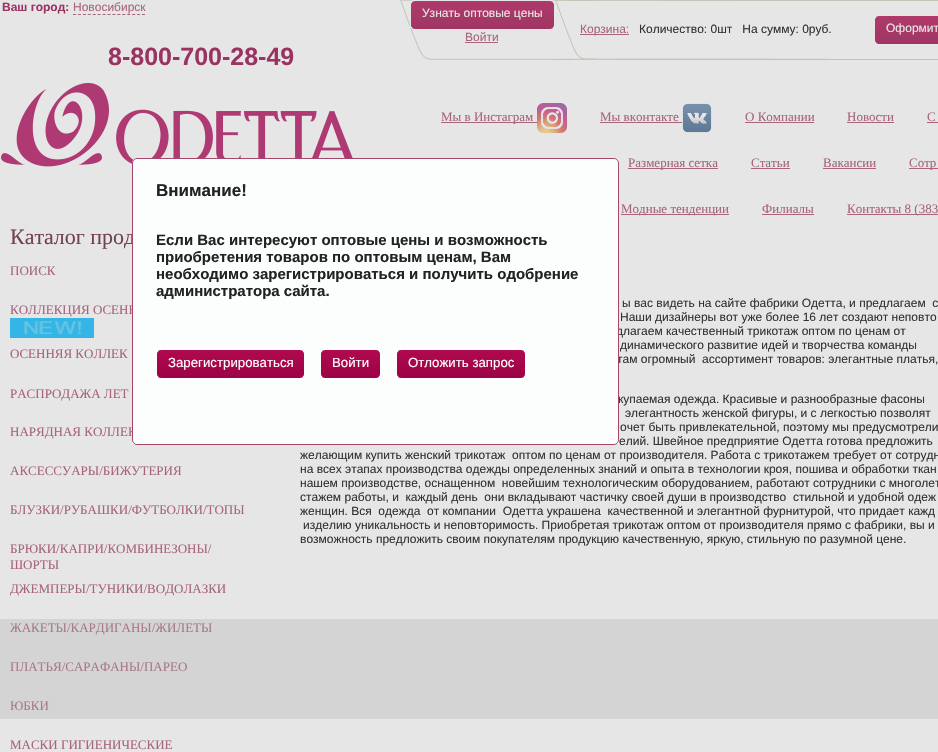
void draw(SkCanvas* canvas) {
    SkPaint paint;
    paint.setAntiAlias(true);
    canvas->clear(0xFFE6E6E6);
    paint.setColor(0xFFD4D4D4);
    canvas->drawRect(SkRect::MakeXYWH(0, 619, 938, 100), paint);
    SkFont font1(fontMgr->matchFamilyStyle("Liberation Sans", SkFontStyle::Bold()), 12);
    font1.setSubpixel(true);
    paint.setColor(0xFF9A3361);
    canvas->drawString("Ваш город:", 2, 11, font1, paint);
    SkFont font2(fontMgr->matchFamilyStyle("Liberation Sans", SkFontStyle::Normal()), 12);
    font2.setSubpixel(true);
    paint.setColor(0xFFA7647C);
    canvas->drawString("Новосибирск", 73, 11, font2, paint);
    paint.setStyle(SkPaint::kStroke_Style);
    paint.setStrokeWidth(1);
    paint.setPathEffect(SkDashPathEffect::Make({{3, 1.93f}}, 0));
    canvas->drawPath(SkPathBuilder().moveTo(73, 14.5f).lineTo(145, 14.5f).detach(), paint);
    paint.setPathEffect(nullptr);
    SkFont font3(fontMgr->matchFamilyStyle("Liberation Sans", SkFontStyle::Bold()), 25);
    font3.setSubpixel(true);
    paint.setStyle(SkPaint::kFill_Style);
    paint.setColor(0xFF9A3361);
    canvas->drawString("8-800-700-28-49", 108, 65, font3, paint);
    canvas->drawImageRect(SkImages::DeferredFromEncodedData(SkData::MakeFromFileName("img1.png")), SkRect::MakeXYWH(1, 83, 352, 84), SkSamplingOptions());
    canvas->drawImageRect(SkImages::DeferredFromEncodedData(SkData::MakeFromFileName("img2.png")), SkRect::MakeXYWH(400, 0, 538, 60), SkSamplingOptions());
    canvas->drawImageRect(SkImages::DeferredFromEncodedData(SkData::MakeFromFileName("img3.png")), SkRect::MakeXYWH(410, 0, 12, 29), SkSamplingOptions());
    canvas->drawImageRect(SkImages::DeferredFromEncodedData(SkData::MakeFromFileName("img4.png")), SkRect::MakeXYWH(422, 0, 121, 29), SkSamplingOptions());
    paint.setColor(0xFFE6E6E6);
    canvas->drawString("Узнать оптовые цены", 422, 17, font2, paint);
    canvas->drawImageRect(SkImages::DeferredFromEncodedData(SkData::MakeFromFileName("img5.png")), SkRect::MakeXYWH(543, 0, 11, 29), SkSamplingOptions());
    paint.setColor(0xFFA7647C);
    canvas->drawString("Войти", 465, 41, font2, paint);
    canvas->drawRect(SkRect::MakeXYWH(465, 42, 33, 1), paint);
    canvas->drawRect(SkRect::MakeXYWH(580, 34, 49, 1), paint);
    canvas->drawString("Корзина:", 580, 33, font2, paint);
    paint.setColor(0xFF333333);
    canvas->drawString("Количество: 0шт   На сумму: 0руб.", 639, 33, font2, paint);
    canvas->drawImageRect(SkImages::DeferredFromEncodedData(SkData::MakeFromFileName("img6.png")), SkRect::MakeXYWH(875, 16, 11, 28), SkSamplingOptions());
    canvas->drawImageRect(SkImages::DeferredFromEncodedData(SkData::MakeFromFileName("img7.png")), SkRect::MakeXYWH(886, 16, 52, 28), SkSamplingOptions());
    paint.setColor(0xFFE6E6E6);
    canvas->drawString("Оформит", 886, 32, font2, paint);
    paint.setColor(0xFFA7647C);
    canvas->drawRect(SkRect::MakeXYWH(441, 122, 96, 1), paint);
    SkFont font4(fontMgr->matchFamilyStyle("Liberation Serif", SkFontStyle::Normal()), 13);
    font4.setSubpixel(true);
    canvas->drawString("Мы в Инстаграм", 441, 121, font4, paint);
    canvas->drawImageRect(SkImages::DeferredFromEncodedData(SkData::MakeFromFileName("img8.png")), SkRect::MakeXYWH(537, 103, 30, 30), SkSamplingOptions());
    canvas->drawString("Мы вконтакте", 600, 121, font4, paint);
    canvas->drawRect(SkRect::MakeXYWH(600, 122, 82, 1), paint);
    canvas->drawImageRect(SkImages::DeferredFromEncodedData(SkData::MakeFromFileName("img9.png")), SkRect::MakeXYWH(682, 103, 30, 30), SkSamplingOptions());
    canvas->drawString("О Компании", 745, 121, font4, paint);
    canvas->drawRect(SkRect::MakeXYWH(745, 122, 69, 1), paint);
    canvas->drawString("Новости", 847, 121, font4, paint);
    canvas->drawRect(SkRect::MakeXYWH(847, 122, 47, 1), paint);
    canvas->drawString("С", 927, 121, font4, paint);
    canvas->drawRect(SkRect::MakeXYWH(927, 122, 11, 1), paint);
    canvas->drawRect(SkRect::MakeXYWH(628, 168, 90, 1), paint);
    canvas->drawString("Размерная сетка", 628, 167, font4, paint);
    canvas->drawString("Статьи", 751, 167, font4, paint);
    canvas->drawRect(SkRect::MakeXYWH(751, 168, 39, 1), paint);
    canvas->drawString("Вакансии", 823, 167, font4, paint);
    canvas->drawRect(SkRect::MakeXYWH(823, 168, 53, 1), paint);
    canvas->drawRect(SkRect::MakeXYWH(909, 168, 29, 1), paint);
    canvas->drawString("Сотр", 909, 167, font4, paint);
    canvas->drawRect(SkRect::MakeXYWH(621, 214, 108, 1), paint);
    canvas->drawString("Модные тенденции", 621, 213, font4, paint);
    canvas->drawString("Филиалы", 762, 213, font4, paint);
    canvas->drawRect(SkRect::MakeXYWH(762, 214, 52, 1), paint);
    canvas->drawRect(SkRect::MakeXYWH(847, 214, 91, 1), paint);
    canvas->drawString("Контакты 8 (383", 847, 213, font4, paint);
    SkFont font5(fontMgr->matchFamilyStyle("Liberation Serif", SkFontStyle::Normal()), 22);
    font5.setSubpixel(true);
    paint.setColor(0xFF734157);
    canvas->drawString("Каталог прод", 10, 244, font5, paint);
    paint.setColor(0xFFA7647C);
    canvas->drawString("КОЛЛЕКЦИЯ ОСЕНЬ", 10, 314, font4, paint);
    canvas->drawString("НАРЯДНАЯ КОЛЛЕК", 10, 436, font4, paint);
    paint.setColor(0xFF333333);
    canvas->drawString("длагаем качественный трикотаж оптом по ценам от", 616, 335, font2, paint);
    canvas->drawString("там огромный  ассортимент товаров: элегантные платья,", 617, 363, font2, paint);
    canvas->drawString("купаемая одежда. Красивые и разнообразные фасоны", 618, 403, font2, paint);
    paint.setColor(0xFFFCFDFD);
    canvas->drawRoundRect(SkRect::MakeXYWH(132, 158, 487, 287), 5, 5, paint);
    paint.setColor(0xFFFDFEFE);
    canvas->drawRect(SkRect::MakeXYWH(132, 441, 487, 3), paint);
    paint.setStyle(SkPaint::kStroke_Style);
    paint.setColor(0xFFA64668);
    canvas->drawRoundRect(SkRect::MakeXYWH(132.5f, 158.5f, 486, 286), 4.5f, 4.5f, paint);
    SkFont font6(fontMgr->matchFamilyStyle("Liberation Sans", SkFontStyle::Bold()), 17);
    font6.setSubpixel(true);
    paint.setStyle(SkPaint::kFill_Style);
    paint.setColor(0xFF222222);
    canvas->drawString("Внимание!", 156, 196, font6, paint);
    SkFont font7(fontMgr->matchFamilyStyle("Liberation Sans", SkFontStyle::Bold()), 15);
    font7.setSubpixel(true);
    canvas->drawString("Если Вас интересуют оптовые цены и возможность", 156, 245, font7, paint);
    canvas->drawString("приобретения товаров по оптовым ценам, Вам", 156, 262, font7, paint);
    canvas->drawString("необходимо зарегистрироваться и получить одобрение", 156, 279, font7, paint);
    canvas->drawString("администратора сайта.", 156, 296, font7, paint);
    canvas->drawImageRect(SkImages::DeferredFromEncodedData(SkData::MakeFromFileName("img10.png")), SkRect::MakeXYWH(157, 350, 11, 28), SkSamplingOptions());
    canvas->drawImageRect(SkImages::DeferredFromEncodedData(SkData::MakeFromFileName("img11.png")), SkRect::MakeXYWH(168, 350, 125, 28), SkSamplingOptions());
    SkFont font8(fontMgr->matchFamilyStyle("Liberation Sans", SkFontStyle::Normal()), 13.25f);
    font8.setSubpixel(true);
    paint.setColor(0xFFFFFFFF);
    canvas->drawString("Зарегистрироваться", 168, 367, font8, paint);
    canvas->drawImageRect(SkImages::DeferredFromEncodedData(SkData::MakeFromFileName("img12.png")), SkRect::MakeXYWH(293, 350, 11, 28), SkSamplingOptions());
    canvas->drawImageRect(SkImages::DeferredFromEncodedData(SkData::MakeFromFileName("img10.png")), SkRect::MakeXYWH(321, 350, 11, 28), SkSamplingOptions());
    canvas->drawImageRect(SkImages::DeferredFromEncodedData(SkData::MakeFromFileName("img13.png")), SkRect::MakeXYWH(332, 350, 37, 28), SkSamplingOptions());
    canvas->drawString("Войти", 332, 367, font8, paint);
    canvas->drawImageRect(SkImages::DeferredFromEncodedData(SkData::MakeFromFileName("img12.png")), SkRect::MakeXYWH(369, 350, 11, 28), SkSamplingOptions());
    canvas->drawImageRect(SkImages::DeferredFromEncodedData(SkData::MakeFromFileName("img10.png")), SkRect::MakeXYWH(397, 350, 11, 28), SkSamplingOptions());
    canvas->drawImageRect(SkImages::DeferredFromEncodedData(SkData::MakeFromFileName("img14.png")), SkRect::MakeXYWH(408, 350, 106, 28), SkSamplingOptions());
    canvas->drawString("Отложить запрос", 408, 367, font8, paint);
    canvas->drawImageRect(SkImages::DeferredFromEncodedData(SkData::MakeFromFileName("img12.png")), SkRect::MakeXYWH(514, 350, 11, 28), SkSamplingOptions());
    paint.setColor(0xFFA7647C);
    canvas->drawString("ПОИСК", 10, 275, font4, paint);
    canvas->drawImageRect(SkImages::DeferredFromEncodedData(SkData::MakeFromFileName("img15.png")), SkRect::MakeXYWH(10, 318, 84, 20), SkSamplingOptions());
    canvas->drawString("ОСЕННЯЯ КОЛЛЕК", 10, 358, font4, paint);
    canvas->drawString("РАСПРОДАЖА ЛЕТ", 10, 398, font4, paint);
    canvas->drawString("АКСЕССУАРЫ/БИЖУТЕРИЯ", 10, 475, font4, paint);
    canvas->drawString("БЛУЗКИ/РУБАШКИ/ФУТБОЛКИ/ТОПЫ", 10, 514, font4, paint);
    canvas->drawString("БРЮКИ/КАПРИ/КОМБИНЕЗОНЫ/", 10, 553, font4, paint);
    canvas->drawString("ШОРТЫ", 10, 569, font4, paint);
    canvas->drawString("ДЖЕМПЕРЫ/ТУНИКИ/ВОДОЛАЗКИ", 10, 593, font4, paint);
    paint.setColor(0xFFA8798A);
    canvas->drawString("ЖАКЕТЫ/КАРДИГАНЫ/ЖИЛЕТЫ", 10, 632, font4, paint);
    canvas->drawString("ПЛАТЬЯ/САРАФАНЫ/ПАРЕО", 10, 671, font4, paint);
    canvas->drawString("ЮБКИ", 10, 710, font4, paint);
    paint.setColor(0xFFA7647C);
    canvas->drawString("МАСКИ ГИГИЕНИЧЕСКИЕ", 10, 749, font4, paint);
    paint.setColor(0xFF333333);
    canvas->drawString("ы вас видеть на сайте фабрики Одетта, и предлагаем  с", 622, 307, font2, paint);
    canvas->drawString("Наши дизайнеры вот уже более 16 лет создают неповто", 620, 321, font2, paint);
    canvas->drawString("динамического развитие идей и творчества команды", 620, 349, font2, paint);
    canvas->drawString("элегантность женской фигуры, и с легкостью позволят", 625, 417, font2, paint);
    canvas->drawString("очет быть привлекательной, поэтому мы предусмотрели", 620, 431, font2, paint);
    canvas->drawString("елий. Швейное предприятие Одетта готова предложить", 619, 445, font2, paint);
    canvas->drawString("желающим купить женский трикотаж  оптом по ценам от производителя. Работа с трикотажем требует от сотрудн", 300, 459, font2, paint);
    canvas->drawString("на всех этапах производства одежды определенных знаний и опыта в технологии кроя, пошива и обработки ткан", 300, 473, font2, paint);
    canvas->drawString("нашем производстве, оснащенном  новейшим технологическим оборудованием, работают сотрудники с многолет", 300, 487, font2, paint);
    canvas->drawString("стажем работы, и  каждый день  они вкладывают частичку своей души в производство  стильной и удобной одеж", 300, 501, font2, paint);
    canvas->drawString("женщин. Вся  одежда  от компании  Одетта украшена  качественной и элегантной фурнитурой, что придает кажд", 300, 515, font2, paint);
    canvas->drawString("изделию уникальность и неповторимость. Приобретая трикотаж оптом от производителя прямо с фабрики, вы и", 303, 529, font2, paint);
    canvas->drawString("возможность предложить своим покупателям продукцию качественную, яркую, стильную по разумной цене.", 300, 543, font2, paint);
}
